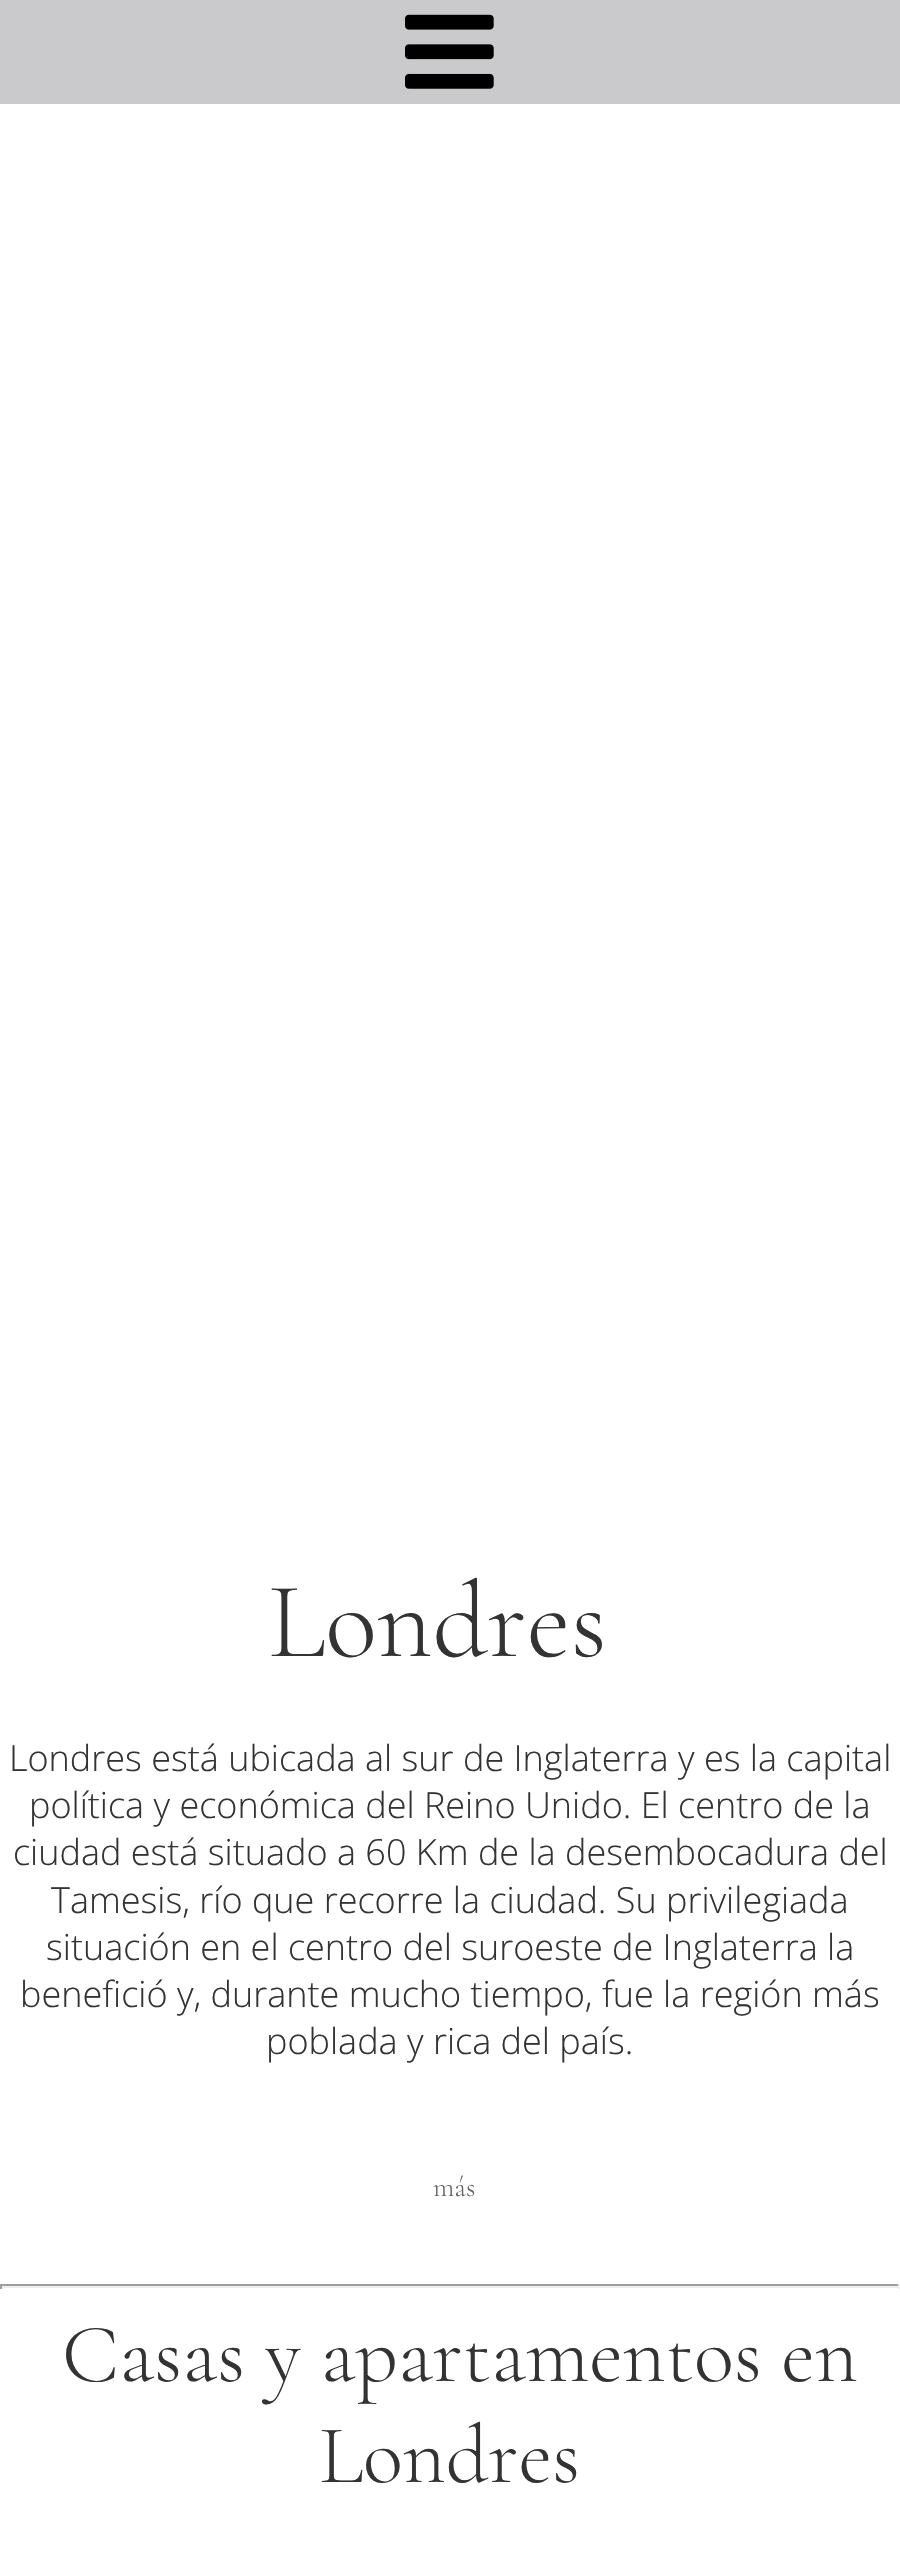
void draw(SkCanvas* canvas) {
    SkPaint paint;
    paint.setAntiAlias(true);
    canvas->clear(0xFFFFFFFF);
    paint.setColor(0xFFCACACC);
    canvas->drawRect(SkRect::MakeXYWH(0, 0, 900, 104), paint);
    canvas->drawImageRect(SkImages::DeferredFromEncodedData(SkData::MakeFromFileName("img1.png")), SkRect::MakeXYWH(405, 14, 89, 75), SkSamplingOptions());
    SkFont font1(fontMgr->matchFamilyStyle("Cormorant Garamond", SkFontStyle(300, SkFontStyle::kNormal_Width, SkFontStyle::kUpright_Slant)), 108);
    font1.setSubpixel(true);
    paint.setColor(0xFF333333);
    canvas->drawString("Londres", 268, 1656, font1, paint);
    SkFont font2(fontMgr->matchFamilyStyle("Open Sans", SkFontStyle(300, SkFontStyle::kNormal_Width, SkFontStyle::kUpright_Slant)), 36);
    font2.setSubpixel(true);
    canvas->drawString("Londres está ubicada al sur de Inglaterra y es la capital", 9, 1771, font2, paint);
    canvas->drawString("política y económica del Reino Unido. El centro de la", 29, 1818, font2, paint);
    canvas->drawString("ciudad está situado a 60 Km de la desembocadura del", 13, 1865, font2, paint);
    canvas->drawString("Tamesis, río que recorre la ciudad. Su privilegiada", 51, 1913, font2, paint);
    canvas->drawString("situación en el centro del suroeste de Inglaterra la", 46, 1960, font2, paint);
    canvas->drawString("benefició y, durante mucho tiempo, fue la región más", 20, 2007, font2, paint);
    canvas->drawString("poblada y rica del país.", 266, 2054, font2, paint);
    SkFont font3(fontMgr->matchFamilyStyle("Cormorant Garamond", SkFontStyle(300, SkFontStyle::kNormal_Width, SkFontStyle::kUpright_Slant)), 28);
    font3.setSubpixel(true);
    paint.setColor(0xFF616166);
    canvas->drawString("más", 433, 2196, font3, paint);
    paint.setColor(0xFF9F9F9F);
    canvas->drawRect(SkRect::MakeXYWH(0, 2284, 900, 2), paint);
    paint.setColor(0xFFEEEEEE);
    canvas->drawRect(SkRect::MakeXYWH(898, 2284, 2, 5), paint);
    canvas->drawRect(SkRect::MakeXYWH(0, 2286, 900, 2), paint);
    paint.setColor(0xFF9F9F9F);
    canvas->drawRect(SkRect::MakeXYWH(0, 2284, 2, 5), paint);
    SkFont font4(fontMgr->matchFamilyStyle("Cormorant Garamond", SkFontStyle(300, SkFontStyle::kNormal_Width, SkFontStyle::kUpright_Slant)), 83.25f);
    font4.setSubpixel(true);
    paint.setColor(0xFF333333);
    canvas->drawString("Casas y apartamentos en", 62, 2381, font4, paint);
    canvas->drawString("Londres", 319, 2482, font4, paint);
}
